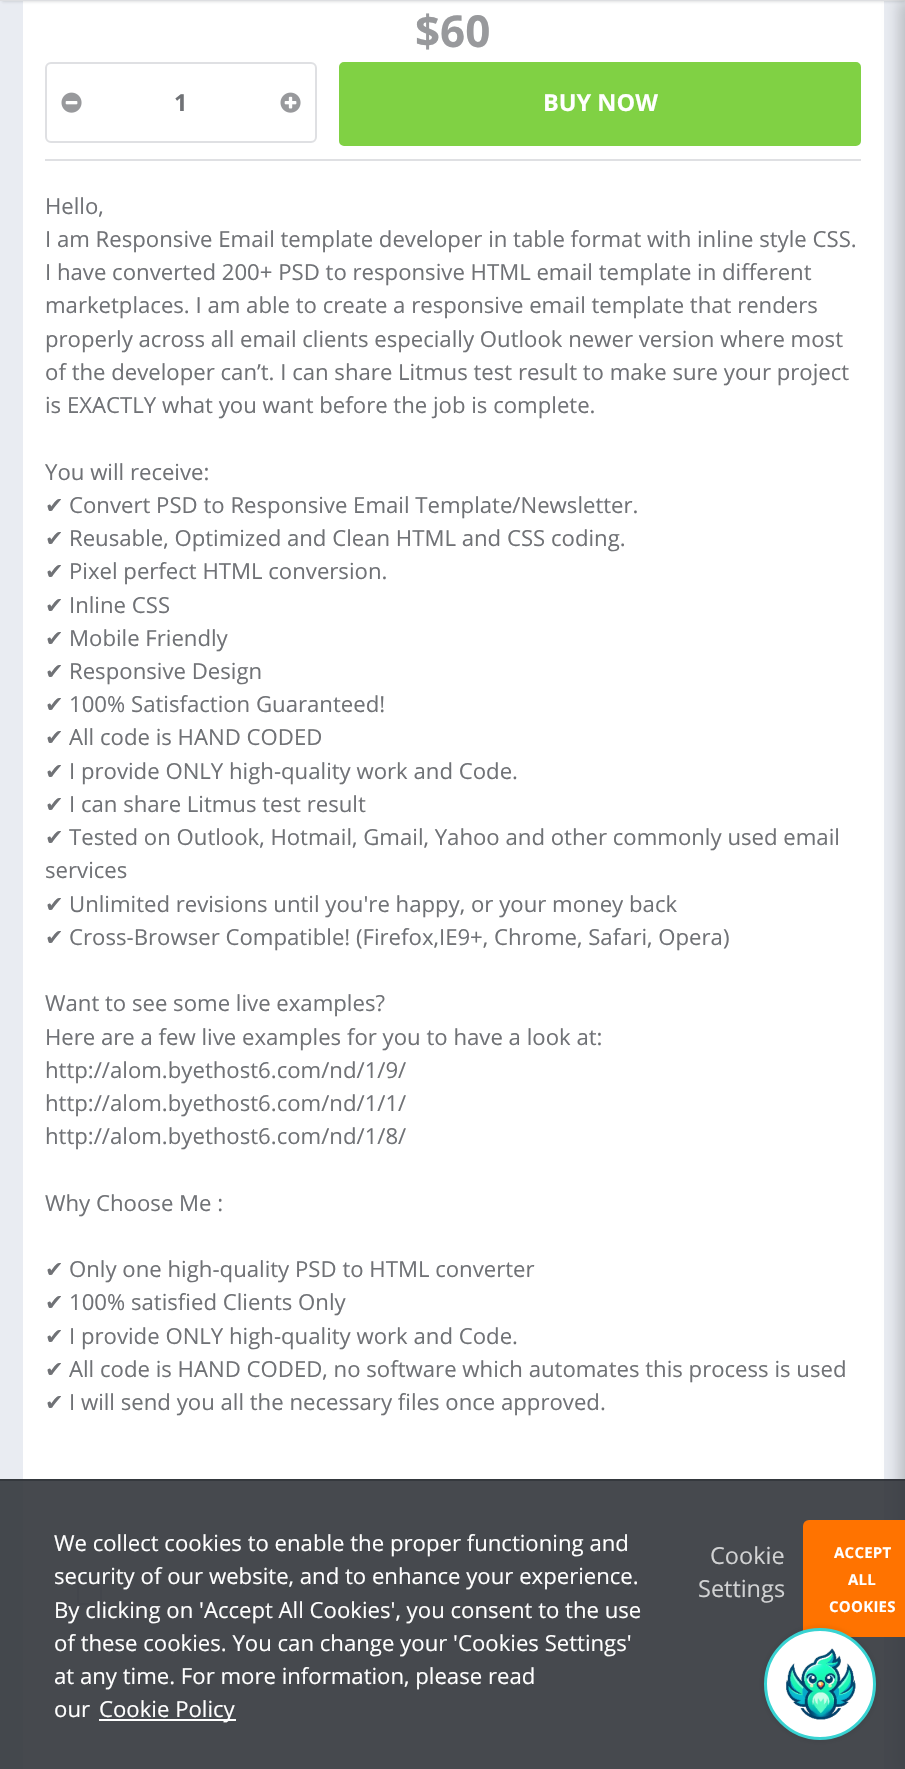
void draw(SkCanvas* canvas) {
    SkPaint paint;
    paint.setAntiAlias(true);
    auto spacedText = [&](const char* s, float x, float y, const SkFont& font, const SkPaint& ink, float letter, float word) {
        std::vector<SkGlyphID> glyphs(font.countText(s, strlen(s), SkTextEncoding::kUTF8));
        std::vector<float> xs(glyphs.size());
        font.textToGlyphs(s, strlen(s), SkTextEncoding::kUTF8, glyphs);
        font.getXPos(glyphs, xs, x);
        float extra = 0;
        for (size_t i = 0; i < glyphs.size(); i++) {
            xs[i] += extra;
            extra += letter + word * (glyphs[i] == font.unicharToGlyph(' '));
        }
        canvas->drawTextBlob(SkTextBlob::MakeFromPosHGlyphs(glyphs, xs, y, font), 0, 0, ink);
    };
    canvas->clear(0xFFE9ECF2);
    paint.setColor(0xFFFFFFFF);
    canvas->drawRect(SkRect::MakeXYWH(23, 1, 861, 1768), paint);
    paint.setColor(0x2632353B);
    paint.setMaskFilter(SkMaskFilter::MakeBlur(kNormal_SkBlurStyle, 1.5f));
    canvas->drawRect(SkRect::MakeXYWH(2, -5, 903, 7), paint);
    paint.setMaskFilter(nullptr);
    paint.setColor(0xFFDDDEE1);
    canvas->drawRect(SkRect::MakeXYWH(0, 0, 905, 1), paint);
    SkFont font1(fontMgr->matchFamilyStyle("Open Sans", SkFontStyle::Bold()), 44);
    font1.setSubpixel(true);
    paint.setColor(0xFF98999C);
    canvas->drawString("$60", 415, 47, font1, paint);
    paint.setStyle(SkPaint::kStroke_Style);
    paint.setStrokeWidth(2);
    paint.setColor(0xFFDFE0E3);
    canvas->drawRoundRect(SkRect::MakeXYWH(46, 63, 270, 79), 5, 5, paint);
    canvas->drawImageRect(SkImages::DeferredFromEncodedData(SkData::MakeFromFileName("img1.png")), SkRect::MakeXYWH(61, 92, 21, 21), SkSamplingOptions());
    SkFont font2(fontMgr->matchFamilyStyle("Open Sans", SkFontStyle::Bold()), 23.5f);
    font2.setSubpixel(true);
    paint.setStyle(SkPaint::kFill_Style);
    paint.setColor(0xFF707276);
    canvas->drawString("1", 174, 111, font2, paint);
    canvas->drawImageRect(SkImages::DeferredFromEncodedData(SkData::MakeFromFileName("img2.png")), SkRect::MakeXYWH(280, 92, 21, 21), SkSamplingOptions());
    paint.setColor(0xFF80D144);
    canvas->drawRoundRect(SkRect::MakeXYWH(340, 63, 520, 82), 4, 4, paint);
    paint.setStyle(SkPaint::kStroke_Style);
    canvas->drawRoundRect(SkRect::MakeXYWH(340, 63, 520, 82), 4, 4, paint);
    paint.setStyle(SkPaint::kFill_Style);
    paint.setColor(0xFFFFFFFF);
    canvas->drawString("BUY NOW", 543, 111, font2, paint);
    paint.setColor(0xFFDFE0E3);
    canvas->drawRect(SkRect::MakeXYWH(45, 159, 816, 2), paint);
    SkFont font3(fontMgr->matchFamilyStyle("Open Sans", SkFontStyle::Normal()), 22.15f);
    font3.setSubpixel(true);
    paint.setColor(0xFF707276);
    canvas->drawString("Hello,", 45, 214, font3, paint);
    canvas->drawString("I am Responsive Email template developer in table format with inline style CSS.", 45, 247, font3, paint);
    canvas->drawString("I have converted 200+ PSD to responsive HTML email template in different", 45, 280, font3, paint);
    canvas->drawString("marketplaces. I am able to create a responsive email template that renders", 45, 313, font3, paint);
    canvas->drawString("properly across all email clients especially Outlook newer version where most", 45, 347, font3, paint);
    canvas->drawString("of the developer can’t. I can share Litmus test result to make sure your project", 45, 380, font3, paint);
    canvas->drawString("is EXACTLY what you want before the job is complete.", 45, 413, font3, paint);
    canvas->drawString("You will receive:", 45, 480, font3, paint);
    SkFont font4(fontMgr->matchFamilyStyle("DejaVu Sans", SkFontStyle::Normal()), 22.15f);
    font4.setSubpixel(true);
    canvas->drawString("✔", 45, 513, font4, paint);
    canvas->drawString("Convert PSD to Responsive Email Template/Newsletter.", 69, 513, font3, paint);
    canvas->drawString("✔", 45, 546, font4, paint);
    canvas->drawString("Reusable, Optimized and Clean HTML and CSS coding.", 69, 546, font3, paint);
    canvas->drawString("✔", 45, 579, font4, paint);
    canvas->drawString("Pixel perfect HTML conversion.", 69, 579, font3, paint);
    canvas->drawString("✔", 45, 613, font4, paint);
    canvas->drawString("Inline CSS", 69, 613, font3, paint);
    canvas->drawString("✔", 45, 646, font4, paint);
    canvas->drawString("Mobile Friendly", 69, 646, font3, paint);
    canvas->drawString("✔", 45, 679, font4, paint);
    canvas->drawString("Responsive Design", 69, 679, font3, paint);
    canvas->drawString("✔", 45, 712, font4, paint);
    canvas->drawString("100% Satisfaction Guaranteed!", 69, 712, font3, paint);
    canvas->drawString("✔", 45, 745, font4, paint);
    canvas->drawString("All code is HAND CODED", 69, 745, font3, paint);
    canvas->drawString("✔", 45, 779, font4, paint);
    canvas->drawString("I provide ONLY high-quality work and Code.", 69, 779, font3, paint);
    canvas->drawString("✔", 45, 812, font4, paint);
    canvas->drawString("I can share Litmus test result", 69, 812, font3, paint);
    canvas->drawString("✔", 45, 845, font4, paint);
    canvas->drawString("Tested on Outlook, Hotmail, Gmail, Yahoo and other commonly used email", 69, 845, font3, paint);
    canvas->drawString("services", 45, 878, font3, paint);
    canvas->drawString("✔", 45, 912, font4, paint);
    canvas->drawString("Unlimited revisions until you're happy, or your money back", 69, 912, font3, paint);
    canvas->drawString("✔", 45, 945, font4, paint);
    canvas->drawString("Cross-Browser Compatible! (Firefox,IE9+, Chrome, Safari, Opera)", 69, 945, font3, paint);
    canvas->drawString("Want to see some live examples?", 45, 1011, font3, paint);
    canvas->drawString("Here are a few live examples for you to have a look at:", 45, 1045, font3, paint);
    canvas->drawString("http://alom.byethost6.com/nd/1/9/", 45, 1078, font3, paint);
    canvas->drawString("http://alom.byethost6.com/nd/1/1/", 45, 1111, font3, paint);
    canvas->drawString("http://alom.byethost6.com/nd/1/8/", 45, 1144, font3, paint);
    canvas->drawString("Why Choose Me :", 45, 1211, font3, paint);
    canvas->drawString("✔", 45, 1277, font4, paint);
    canvas->drawString("Only one high-quality PSD to HTML converter", 69, 1277, font3, paint);
    canvas->drawString("✔", 45, 1310, font4, paint);
    canvas->drawString("100% satisfied Clients Only", 69, 1310, font3, paint);
    canvas->drawString("✔", 45, 1344, font4, paint);
    canvas->drawString("I provide ONLY high-quality work and Code.", 69, 1344, font3, paint);
    canvas->drawString("✔", 45, 1377, font4, paint);
    canvas->drawString("All code is HAND CODED, no software which automates this process is used", 69, 1377, font3, paint);
    canvas->drawString("✔", 45, 1410, font4, paint);
    canvas->drawString("I will send you all the necessary files once approved.", 69, 1410, font3, paint);
    paint.setColor(0xFFF8F9FC);
    canvas->drawRoundRect(SkRect::MakeXYWH(45, 1535, 816, 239), 5, 5, paint);
    paint.setColor(0xFFFFFFFF);
    canvas->drawRoundRect(SkRect::MakeXYWH(53, 1542, 801, 224), 5, 5, paint);
    paint.setStyle(SkPaint::kStroke_Style);
    paint.setColor(0xFFDFE0E3);
    canvas->drawRoundRect(SkRect::MakeXYWH(78, 1581, 23, 23), 2, 2, paint);
    paint.setStyle(SkPaint::kFill_Style);
    paint.setColor(0x33000000);
    paint.setMaskFilter(SkMaskFilter::MakeBlur(kNormal_SkBlurStyle, 7.5f));
    canvas->drawRect(SkRect::MakeXYWH(899, 0, 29, 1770), paint);
    paint.setMaskFilter(nullptr);
    paint.setColor(0xE632353B);
    canvas->drawRect(SkRect::MakeXYWH(0, 1479, 905, 290), paint);
    canvas->drawRect(SkRect::MakeXYWH(0, 1479, 905, 2), paint);
    paint.setColor(0xFFFFFFFF);
    canvas->drawString("We collect cookies to enable the proper functioning and", 54, 1551, font3, paint);
    canvas->drawString("security of our website, and to enhance your experience.", 54, 1584, font3, paint);
    canvas->drawString("By clicking on 'Accept All Cookies', you consent to the use", 54, 1618, font3, paint);
    canvas->drawString("of these cookies. You can change your 'Cookies Settings'", 54, 1651, font3, paint);
    canvas->drawString("at any time. For more information, please read", 54, 1684, font3, paint);
    canvas->drawString("our", 54, 1717, font3, paint);
    canvas->drawRect(SkRect::MakeXYWH(99, 1719, 137, 2), paint);
    canvas->drawString("Cookie Policy", 99, 1717, font3, paint);
    SkFont font5(fontMgr->matchFamilyStyle("Open Sans", SkFontStyle::Normal()), 23.5f);
    font5.setSubpixel(true);
    paint.setColor(0xFFD1D2D3);
    canvas->drawString("Cookie", 710, 1564, font5, paint);
    canvas->drawString("Settings", 698, 1597, font5, paint);
    paint.setColor(0xFFFF7300);
    canvas->drawRoundRect(SkRect::MakeXYWH(803, 1520, 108, 117), 6, 6, paint);
    SkFont font6(fontMgr->matchFamilyStyle("Open Sans", SkFontStyle::Bold()), 15);
    font6.setSubpixel(true);
    paint.setColor(0xFFFFFFFF);
    spacedText("ACCEPT", 834, 1558, font6, paint, 0.25f, 0);
    spacedText("ALL", 848, 1585, font6, paint, 0.25f, 0);
    spacedText("COOKIES", 829, 1612, font6, paint, 0.25f, 0);
    paint.setColor(0x0A000000);
    paint.setMaskFilter(SkMaskFilter::MakeBlur(kNormal_SkBlurStyle, 1.5f));
    canvas->drawRoundRect(SkRect::MakeXYWH(761, 1625, 118, 118), 59, 59, paint);
    paint.setMaskFilter(nullptr);
    paint.setColor(0xFFFFFFFF);
    canvas->drawCircle(820, 1684, 54.5f, paint);
    paint.setStyle(SkPaint::kStroke_Style);
    paint.setStrokeWidth(3);
    paint.setColor(0xFF38D3D2);
    canvas->drawCircle(820, 1684, 54.5f, paint);
    canvas->drawImageRect(SkImages::DeferredFromEncodedData(SkData::MakeFromFileName("img3.png")), SkRect::MakeXYWH(786, 1648, 70, 72), SkSamplingOptions());
}
